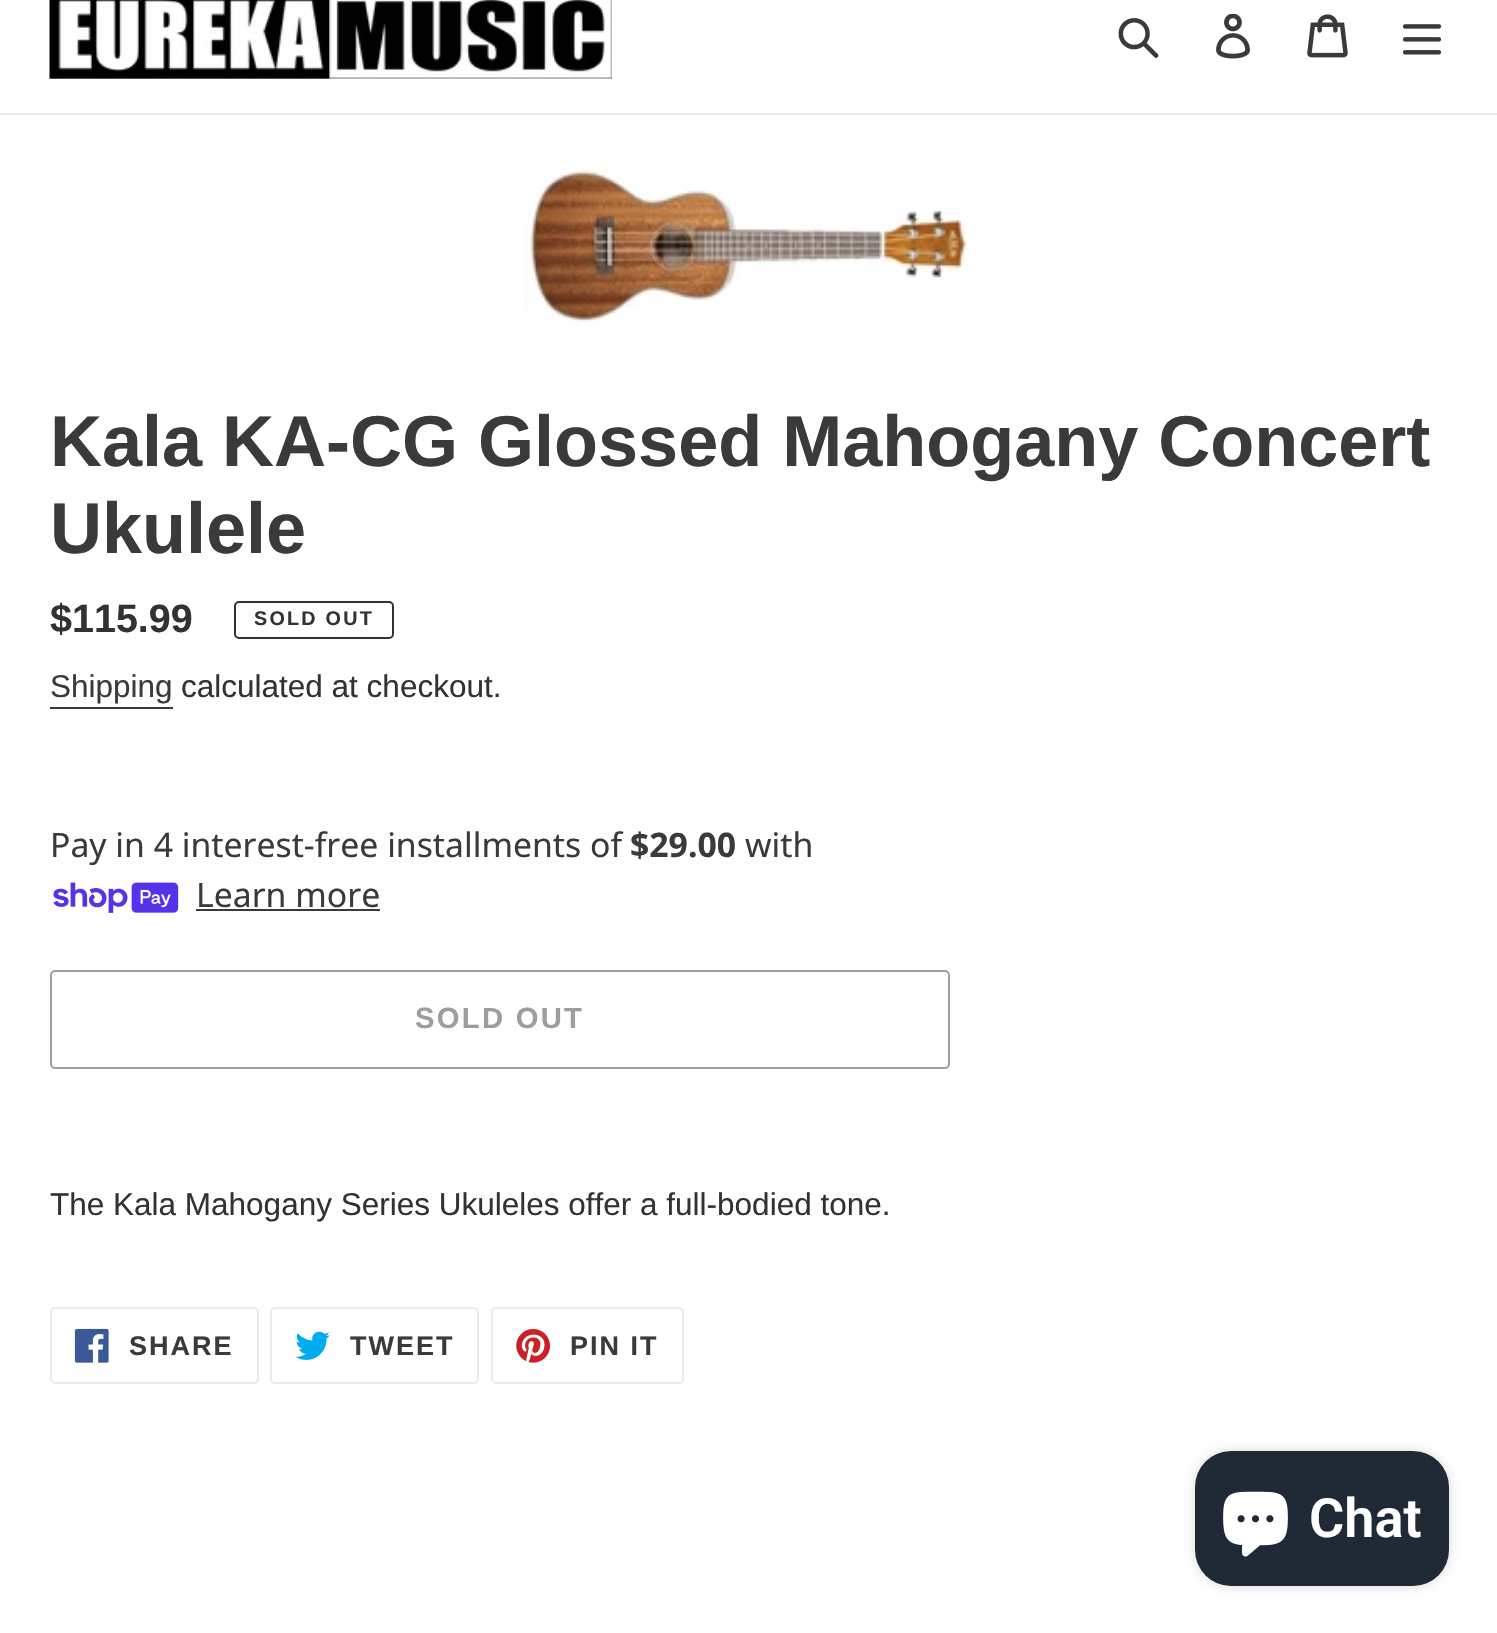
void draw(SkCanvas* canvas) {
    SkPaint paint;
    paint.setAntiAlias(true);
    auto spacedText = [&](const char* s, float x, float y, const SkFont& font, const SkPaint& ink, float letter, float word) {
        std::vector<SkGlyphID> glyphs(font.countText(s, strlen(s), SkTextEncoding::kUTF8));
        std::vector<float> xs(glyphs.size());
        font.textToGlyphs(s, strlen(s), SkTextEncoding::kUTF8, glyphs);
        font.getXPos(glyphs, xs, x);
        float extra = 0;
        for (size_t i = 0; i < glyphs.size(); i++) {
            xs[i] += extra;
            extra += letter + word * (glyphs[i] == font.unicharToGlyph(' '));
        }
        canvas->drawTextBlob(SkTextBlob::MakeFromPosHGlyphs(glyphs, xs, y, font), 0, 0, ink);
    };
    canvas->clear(0xFFFFFFFF);
    paint.setColor(0xFFEBEBEB);
    canvas->drawRect(SkRect::MakeXYWH(0, 113, 1497, 2), paint);
    canvas->drawImageRect(SkImages::DeferredFromEncodedData(SkData::MakeFromFileName("img1.png")), SkRect::MakeXYWH(49, 0, 563, 79), SkSamplingOptions());
    canvas->drawImageRect(SkImages::DeferredFromEncodedData(SkData::MakeFromFileName("img2.png")), SkRect::MakeXYWH(1118, 18, 41, 40), SkSamplingOptions());
    canvas->drawImageRect(SkImages::DeferredFromEncodedData(SkData::MakeFromFileName("img3.png")), SkRect::MakeXYWH(1216, 14, 34, 45), SkSamplingOptions());
    canvas->drawImageRect(SkImages::DeferredFromEncodedData(SkData::MakeFromFileName("img4.png")), SkRect::MakeXYWH(1307, 14, 41, 44), SkSamplingOptions());
    canvas->drawImageRect(SkImages::DeferredFromEncodedData(SkData::MakeFromFileName("img5.png")), SkRect::MakeXYWH(1402, 24, 40, 31), SkSamplingOptions());
    canvas->drawImageRect(SkImages::DeferredFromEncodedData(SkData::MakeFromFileName("img6.png")), SkRect::MakeXYWH(524, 170, 445, 156), SkSamplingOptions());
    SkFont font1(fontMgr->matchFamilyStyle("Liberation Sans", SkFontStyle::Bold()), 72);
    font1.setSubpixel(true);
    paint.setColor(0xFF3A3A3A);
    canvas->drawString("Kala KA-CG Glossed Mahogany Concert", 50, 466, font1, paint);
    canvas->drawString("Ukulele", 50, 553, font1, paint);
    SkFont font2(fontMgr->matchFamilyStyle("Liberation Sans", SkFontStyle::Bold()), 39.5f);
    font2.setSubpixel(true);
    paint.setColor(0xFF333232);
    canvas->drawString("$115.99", 50, 632, font2, paint);
    paint.setStyle(SkPaint::kStroke_Style);
    paint.setStrokeWidth(2);
    canvas->drawRoundRect(SkRect::MakeXYWH(235, 602, 158, 36), 4, 4, paint);
    SkFont font3(fontMgr->matchFamilyStyle("Liberation Sans", SkFontStyle::Bold()), 19.75f);
    font3.setSubpixel(true);
    paint.setStyle(SkPaint::kFill_Style);
    spacedText("SOLD OUT", 254, 625, font3, paint, 2.25f, 0);
    SkFont font4(fontMgr->matchFamilyStyle("Liberation Sans", SkFontStyle::Normal()), 31.5f);
    font4.setSubpixel(true);
    paint.setColor(0xFF3A3A3A);
    canvas->drawString("Shipping", 50, 697, font4, paint);
    canvas->drawRect(SkRect::MakeXYWH(50, 707, 123, 2), paint);
    paint.setColor(0xFF333232);
    canvas->drawString("calculated at checkout.", 181, 697, font4, paint);
    SkFont font5(fontMgr->matchFamilyStyle("Noto Sans", SkFontStyle::Normal()), 33.75f);
    font5.setSubpixel(true);
    paint.setColor(0xFF3A3A3A);
    canvas->drawString("Pay in 4 interest-free installments of", 50, 857, font5, paint);
    SkFont font6(fontMgr->matchFamilyStyle("Noto Sans", SkFontStyle::Bold()), 33.75f);
    font6.setSubpixel(true);
    canvas->drawString("$29.00", 630, 857, font6, paint);
    canvas->drawString("with", 745, 857, font5, paint);
    canvas->drawImageRect(SkImages::DeferredFromEncodedData(SkData::MakeFromFileName("img7.png")), SkRect::MakeXYWH(53, 882, 126, 31), SkSamplingOptions());
    canvas->drawString("Learn more", 196, 907, font5, paint);
    canvas->drawRect(SkRect::MakeXYWH(196, 909, 184, 2), paint);
    paint.setStyle(SkPaint::kStroke_Style);
    paint.setColor(0xFF9D9D9D);
    canvas->drawRoundRect(SkRect::MakeXYWH(51, 971, 898, 97), 4, 4, paint);
    SkFont font7(fontMgr->matchFamilyStyle("Liberation Sans", SkFontStyle::Bold()), 29.25f);
    font7.setSubpixel(true);
    paint.setStyle(SkPaint::kFill_Style);
    spacedText("SOLD OUT", 415, 1028, font7, paint, 2.25f, 0);
    paint.setColor(0xFF333232);
    canvas->drawString("The Kala Mahogany Series Ukuleles offer a full-bodied tone.", 50, 1215, font4, paint);
    paint.setStyle(SkPaint::kStroke_Style);
    paint.setColor(0xFFEBEBEB);
    canvas->drawRoundRect(SkRect::MakeXYWH(51, 1308, 207, 75), 4, 4, paint);
    canvas->drawImageRect(SkImages::DeferredFromEncodedData(SkData::MakeFromFileName("img8.png")), SkRect::MakeXYWH(74, 1328, 35, 35), SkSamplingOptions());
    SkFont font8(fontMgr->matchFamilyStyle("Liberation Sans", SkFontStyle::Bold()), 27);
    font8.setSubpixel(true);
    paint.setStyle(SkPaint::kFill_Style);
    paint.setColor(0xFF3A3A3A);
    spacedText("SHARE", 129, 1355, font8, paint, 2, 0);
    paint.setStyle(SkPaint::kStroke_Style);
    paint.setColor(0xFFEBEBEB);
    canvas->drawRoundRect(SkRect::MakeXYWH(271, 1308, 207, 75), 4, 4, paint);
    canvas->drawImageRect(SkImages::DeferredFromEncodedData(SkData::MakeFromFileName("img9.png")), SkRect::MakeXYWH(295, 1331, 35, 29), SkSamplingOptions());
    paint.setStyle(SkPaint::kFill_Style);
    paint.setColor(0xFF3A3A3A);
    spacedText("TWEET", 350, 1355, font8, paint, 2, 0);
    paint.setStyle(SkPaint::kStroke_Style);
    paint.setColor(0xFFEBEBEB);
    canvas->drawRoundRect(SkRect::MakeXYWH(492, 1308, 191, 75), 4, 4, paint);
    canvas->drawImageRect(SkImages::DeferredFromEncodedData(SkData::MakeFromFileName("img10.png")), SkRect::MakeXYWH(516, 1329, 34, 34), SkSamplingOptions());
    paint.setStyle(SkPaint::kFill_Style);
    paint.setColor(0xFF3A3A3A);
    spacedText("PIN IT", 570, 1355, font8, paint, 2, 0);
    paint.setColor(0x26000000);
    paint.setMaskFilter(SkMaskFilter::MakeBlur(kNormal_SkBlurStyle, 5.5f));
    canvas->drawRoundRect(SkRect::MakeXYWH(1195, 1451, 254, 135), 36, 36, paint);
    paint.setMaskFilter(nullptr);
    paint.setColor(0xFF202A36);
    canvas->drawRoundRect(SkRect::MakeXYWH(1195, 1451, 254, 135), 36, 36, paint);
    canvas->drawImageRect(SkImages::DeferredFromEncodedData(SkData::MakeFromFileName("img11.png")), SkRect::MakeXYWH(1223, 1491, 65, 66), SkSamplingOptions());
    SkFont font9(fontMgr->matchFamilyStyle("Roboto", SkFontStyle(600, SkFontStyle::kNormal_Width, SkFontStyle::kUpright_Slant)), 54);
    font9.setSubpixel(true);
    paint.setColor(0xFFFFFFFF);
    canvas->drawString("Chat", 1309, 1537, font9, paint);
}
